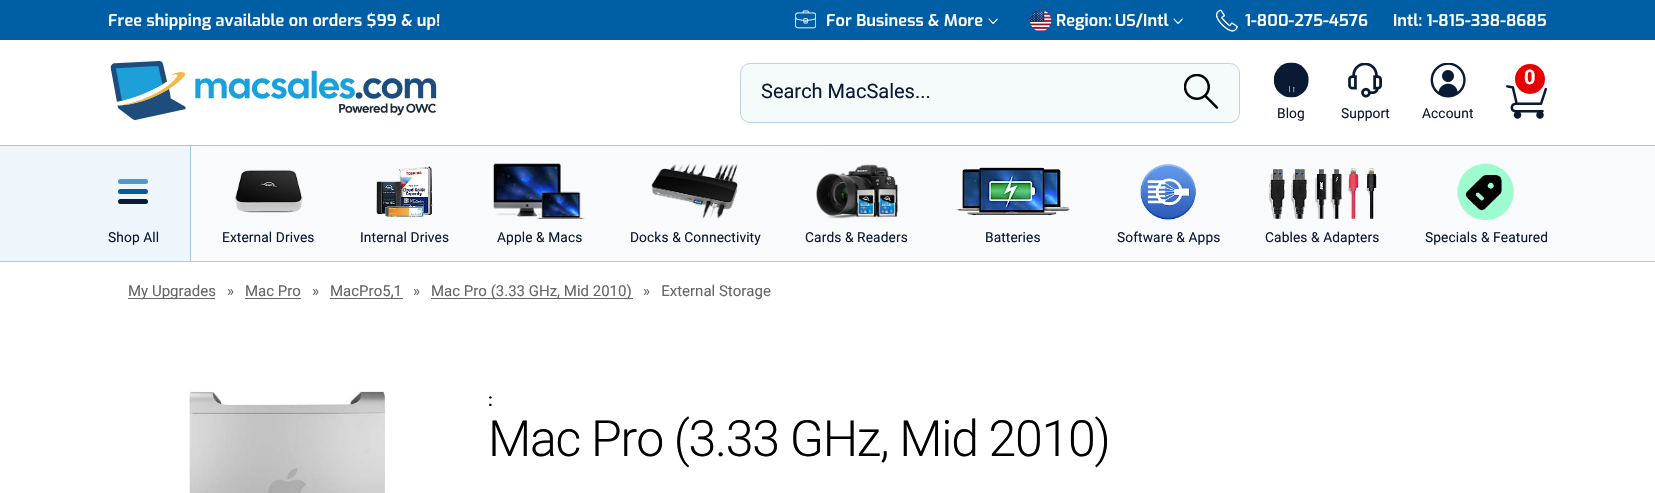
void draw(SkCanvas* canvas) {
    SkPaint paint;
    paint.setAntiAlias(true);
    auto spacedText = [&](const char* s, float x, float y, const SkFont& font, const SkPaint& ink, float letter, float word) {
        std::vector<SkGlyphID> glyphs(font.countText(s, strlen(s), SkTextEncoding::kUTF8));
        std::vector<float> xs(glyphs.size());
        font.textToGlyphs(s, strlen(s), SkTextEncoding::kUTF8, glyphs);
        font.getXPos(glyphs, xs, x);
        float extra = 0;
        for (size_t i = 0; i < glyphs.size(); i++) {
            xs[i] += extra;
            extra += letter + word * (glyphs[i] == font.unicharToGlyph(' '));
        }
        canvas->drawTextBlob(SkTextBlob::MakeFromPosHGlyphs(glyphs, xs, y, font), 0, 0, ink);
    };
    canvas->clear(0xFFFFFFFF);
    paint.setColor(0xFF005EA4);
    canvas->drawRect(SkRect::MakeXYWH(0, 0, 1655, 40), paint);
    SkFont font1(fontMgr->matchFamilyStyle("Exo", SkFontStyle(600, SkFontStyle::kNormal_Width, SkFontStyle::kUpright_Slant)), 16.25f);
    font1.setSubpixel(true);
    paint.setColor(0xFFFFFFFF);
    spacedText("Free shipping available on orders $99 & up!", 108, 26, font1, paint, 0.1f, 0);
    canvas->drawImageRect(SkImages::DeferredFromEncodedData(SkData::MakeFromFileName("img1.png")), SkRect::MakeXYWH(795, 10, 21, 19), SkSamplingOptions());
    spacedText("For Business & More", 826, 26, font1, paint, 0.1f, 0);
    canvas->drawImageRect(SkImages::DeferredFromEncodedData(SkData::MakeFromFileName("img2.png")), SkRect::MakeXYWH(988, 18, 10, 6), SkSamplingOptions());
    canvas->drawImageRect(SkImages::DeferredFromEncodedData(SkData::MakeFromFileName("img3.png")), SkRect::MakeXYWH(1030, 10, 22, 22), SkSamplingOptions());
    spacedText("Region:", 1056, 26, font1, paint, 0.1f, 0);
    spacedText("US/Intl", 1115, 26, font1, paint, 0.1f, 0);
    canvas->drawImageRect(SkImages::DeferredFromEncodedData(SkData::MakeFromFileName("img2.png")), SkRect::MakeXYWH(1173, 18, 10, 6), SkSamplingOptions());
    canvas->drawImageRect(SkImages::DeferredFromEncodedData(SkData::MakeFromFileName("img4.png")), SkRect::MakeXYWH(1215, 9, 23, 23), SkSamplingOptions());
    spacedText("1-800-275-4576", 1245, 26, font1, paint, 0.1f, 0);
    spacedText("Intl: 1-815-338-8685", 1393, 26, font1, paint, 0.1f, 0);
    paint.setColor(0xFFA7CCE8);
    canvas->drawRect(SkRect::MakeXYWH(0, 261, 1655, 1), paint);
    canvas->drawImageRect(SkImages::DeferredFromEncodedData(SkData::MakeFromFileName("img5.png")), SkRect::MakeXYWH(110, 61, 327, 59), SkSamplingOptions());
    paint.setColor(0xFFF5FAFB);
    canvas->drawRoundRect(SkRect::MakeXYWH(740, 63, 500, 60), 10, 10, paint);
    paint.setStyle(SkPaint::kStroke_Style);
    paint.setStrokeWidth(1);
    paint.setColor(0x3D005C9F);
    canvas->drawRoundRect(SkRect::MakeXYWH(740.5f, 63.5f, 499, 59), 9.5f, 9.5f, paint);
    SkFont font2(fontMgr->matchFamilyStyle("Roboto", SkFontStyle::Normal()), 20);
    font2.setSubpixel(true);
    paint.setStyle(SkPaint::kFill_Style);
    paint.setColor(0xFF0A1934);
    canvas->drawString("Search MacSales...", 761, 98, font2, paint);
    canvas->drawImageRect(SkImages::DeferredFromEncodedData(SkData::MakeFromFileName("img6.png")), SkRect::MakeXYWH(1184, 74, 35, 35), SkSamplingOptions());
    paint.setColor(0xFFE60000);
    canvas->drawCircle(1530, 79, 15, paint);
    SkFont font3(fontMgr->matchFamilyStyle("Roboto", SkFontStyle::Bold()), 20);
    font3.setSubpixel(true);
    paint.setColor(0xFFFFFFFF);
    canvas->drawString("0", 1524, 84, font3, paint);
    canvas->drawImageRect(SkImages::DeferredFromEncodedData(SkData::MakeFromFileName("img7.png")), SkRect::MakeXYWH(1506, 85, 41, 34), SkSamplingOptions());
    canvas->drawImageRect(SkImages::DeferredFromEncodedData(SkData::MakeFromFileName("img8.png")), SkRect::MakeXYWH(1273, 62, 36, 36), SkSamplingOptions());
    SkFont font4(fontMgr->matchFamilyStyle("Roboto", SkFontStyle::Normal()), 13.75f);
    font4.setSubpixel(true);
    paint.setColor(0xFF0A1934);
    spacedText("Blog", 1277, 118, font4, paint, 0.1f, 0);
    canvas->drawImageRect(SkImages::DeferredFromEncodedData(SkData::MakeFromFileName("img9.png")), SkRect::MakeXYWH(1348, 63, 34, 35), SkSamplingOptions());
    spacedText("Support", 1341, 118, font4, paint, 0.1f, 0);
    canvas->drawImageRect(SkImages::DeferredFromEncodedData(SkData::MakeFromFileName("img10.png")), SkRect::MakeXYWH(1430, 63, 36, 35), SkSamplingOptions());
    spacedText("Account", 1422, 118, font4, paint, 0.1f, 0);
    paint.setColor(0xFFEEF5FB);
    canvas->drawRect(SkRect::MakeXYWH(0, 146, 190, 115), paint);
    paint.setColor(0xFF9FC7E6);
    canvas->drawRect(SkRect::MakeXYWH(0, 145, 828, 1), paint);
    paint.setColor(0xFFF8FAFB);
    canvas->drawRect(SkRect::MakeXYWH(191, 146, 1464, 115), paint);
    paint.setColor(0xFFA4C9E6);
    canvas->drawRect(SkRect::MakeXYWH(828, 145, 827, 1), paint);
    paint.setColor(0xFF9FC7E6);
    canvas->drawRect(SkRect::MakeXYWH(190, 146, 1, 115), paint);
    paint.setColor(0xFF4F98D0);
    canvas->drawRoundRect(SkRect::MakeXYWH(118, 179, 30, 5), 2.5f, 2.5f, paint);
    paint.setColor(0xFF005C9F);
    canvas->drawRoundRect(SkRect::MakeXYWH(118, 189, 30, 5), 2.5f, 2.5f, paint);
    paint.setColor(0xFF0A1934);
    canvas->drawRoundRect(SkRect::MakeXYWH(118, 199, 30, 5), 2.5f, 2.5f, paint);
    spacedText("Shop All", 108, 242, font4, paint, 0.1f, 0);
    canvas->drawImageRect(SkImages::DeferredFromEncodedData(SkData::MakeFromFileName("img11.png")), SkRect::MakeXYWH(235, 170, 68, 43), SkSamplingOptions());
    spacedText("External Drives", 222, 242, font4, paint, 0.1f, 0);
    canvas->drawImageRect(SkImages::DeferredFromEncodedData(SkData::MakeFromFileName("img12.png")), SkRect::MakeXYWH(376, 166, 57, 51), SkSamplingOptions());
    spacedText("Internal Drives", 360, 242, font4, paint, 0.1f, 0);
    canvas->drawImageRect(SkImages::DeferredFromEncodedData(SkData::MakeFromFileName("img13.png")), SkRect::MakeXYWH(493, 163, 92, 56), SkSamplingOptions());
    spacedText("Apple & Macs", 497, 242, font4, paint, 0.1f, 0);
    canvas->drawImageRect(SkImages::DeferredFromEncodedData(SkData::MakeFromFileName("img14.png")), SkRect::MakeXYWH(651, 164, 87, 55), SkSamplingOptions());
    spacedText("Docks & Connectivity", 630, 242, font4, paint, 0.1f, 0);
    canvas->drawImageRect(SkImages::DeferredFromEncodedData(SkData::MakeFromFileName("img15.png")), SkRect::MakeXYWH(816, 164, 82, 55), SkSamplingOptions());
    spacedText("Cards & Readers", 805, 242, font4, paint, 0.1f, 0);
    canvas->drawImageRect(SkImages::DeferredFromEncodedData(SkData::MakeFromFileName("img16.png")), SkRect::MakeXYWH(954, 167, 116, 49), SkSamplingOptions());
    spacedText("Batteries", 985, 242, font4, paint, 0.1f, 0);
    canvas->drawImageRect(SkImages::DeferredFromEncodedData(SkData::MakeFromFileName("img17.png")), SkRect::MakeXYWH(1140, 164, 56, 56), SkSamplingOptions());
    spacedText("Software & Apps", 1117, 242, font4, paint, 0.1f, 0);
    canvas->drawImageRect(SkImages::DeferredFromEncodedData(SkData::MakeFromFileName("img18.png")), SkRect::MakeXYWH(1269, 168, 108, 51), SkSamplingOptions());
    spacedText("Cables & Adapters", 1265, 242, font4, paint, 0.1f, 0);
    canvas->drawImageRect(SkImages::DeferredFromEncodedData(SkData::MakeFromFileName("img19.png")), SkRect::MakeXYWH(1457, 163, 57, 57), SkSamplingOptions());
    spacedText("Specials & Featured", 1425, 242, font4, paint, 0.1f, 0);
    paint.setColor(0xFF666666);
    canvas->drawRect(SkRect::MakeXYWH(128, 298, 87, 1), paint);
    SkFont font5(fontMgr->matchFamilyStyle("Roboto", SkFontStyle::Normal()), 15);
    font5.setSubpixel(true);
    canvas->drawString("My Upgrades", 128, 296, font5, paint);
    canvas->drawString("»", 227, 296, font5, paint);
    canvas->drawString("Mac Pro", 245, 296, font5, paint);
    canvas->drawRect(SkRect::MakeXYWH(245, 298, 56, 1), paint);
    canvas->drawString("»", 312, 296, font5, paint);
    canvas->drawRect(SkRect::MakeXYWH(330, 298, 73, 1), paint);
    canvas->drawString("MacPro5,1", 330, 296, font5, paint);
    canvas->drawString("»", 413, 296, font5, paint);
    canvas->drawRect(SkRect::MakeXYWH(431, 298, 202, 1), paint);
    canvas->drawString("Mac Pro (3.33 GHz, Mid 2010)", 431, 296, font5, paint);
    canvas->drawString("»   External Storage", 643, 296, font5, paint);
    canvas->drawImageRect(SkImages::DeferredFromEncodedData(SkData::MakeFromFileName("img20.png")), SkRect::MakeXYWH(189, 390, 196, 103), SkSamplingOptions());
    SkFont font6(fontMgr->matchFamilyStyle("Roboto", SkFontStyle(500, SkFontStyle::kNormal_Width, SkFontStyle::kUpright_Slant)), 18);
    font6.setSubpixel(true);
    paint.setColor(0xFF000000);
    canvas->drawString(":", 488, 406, font6, paint);
    SkFont font7(fontMgr->matchFamilyStyle("Roboto", SkFontStyle(300, SkFontStyle::kNormal_Width, SkFontStyle::kUpright_Slant)), 50);
    font7.setSubpixel(true);
    spacedText("Mac Pro (3.33 GHz, Mid 2010)", 488, 456, font7, paint, -1.25f, 0);
}
